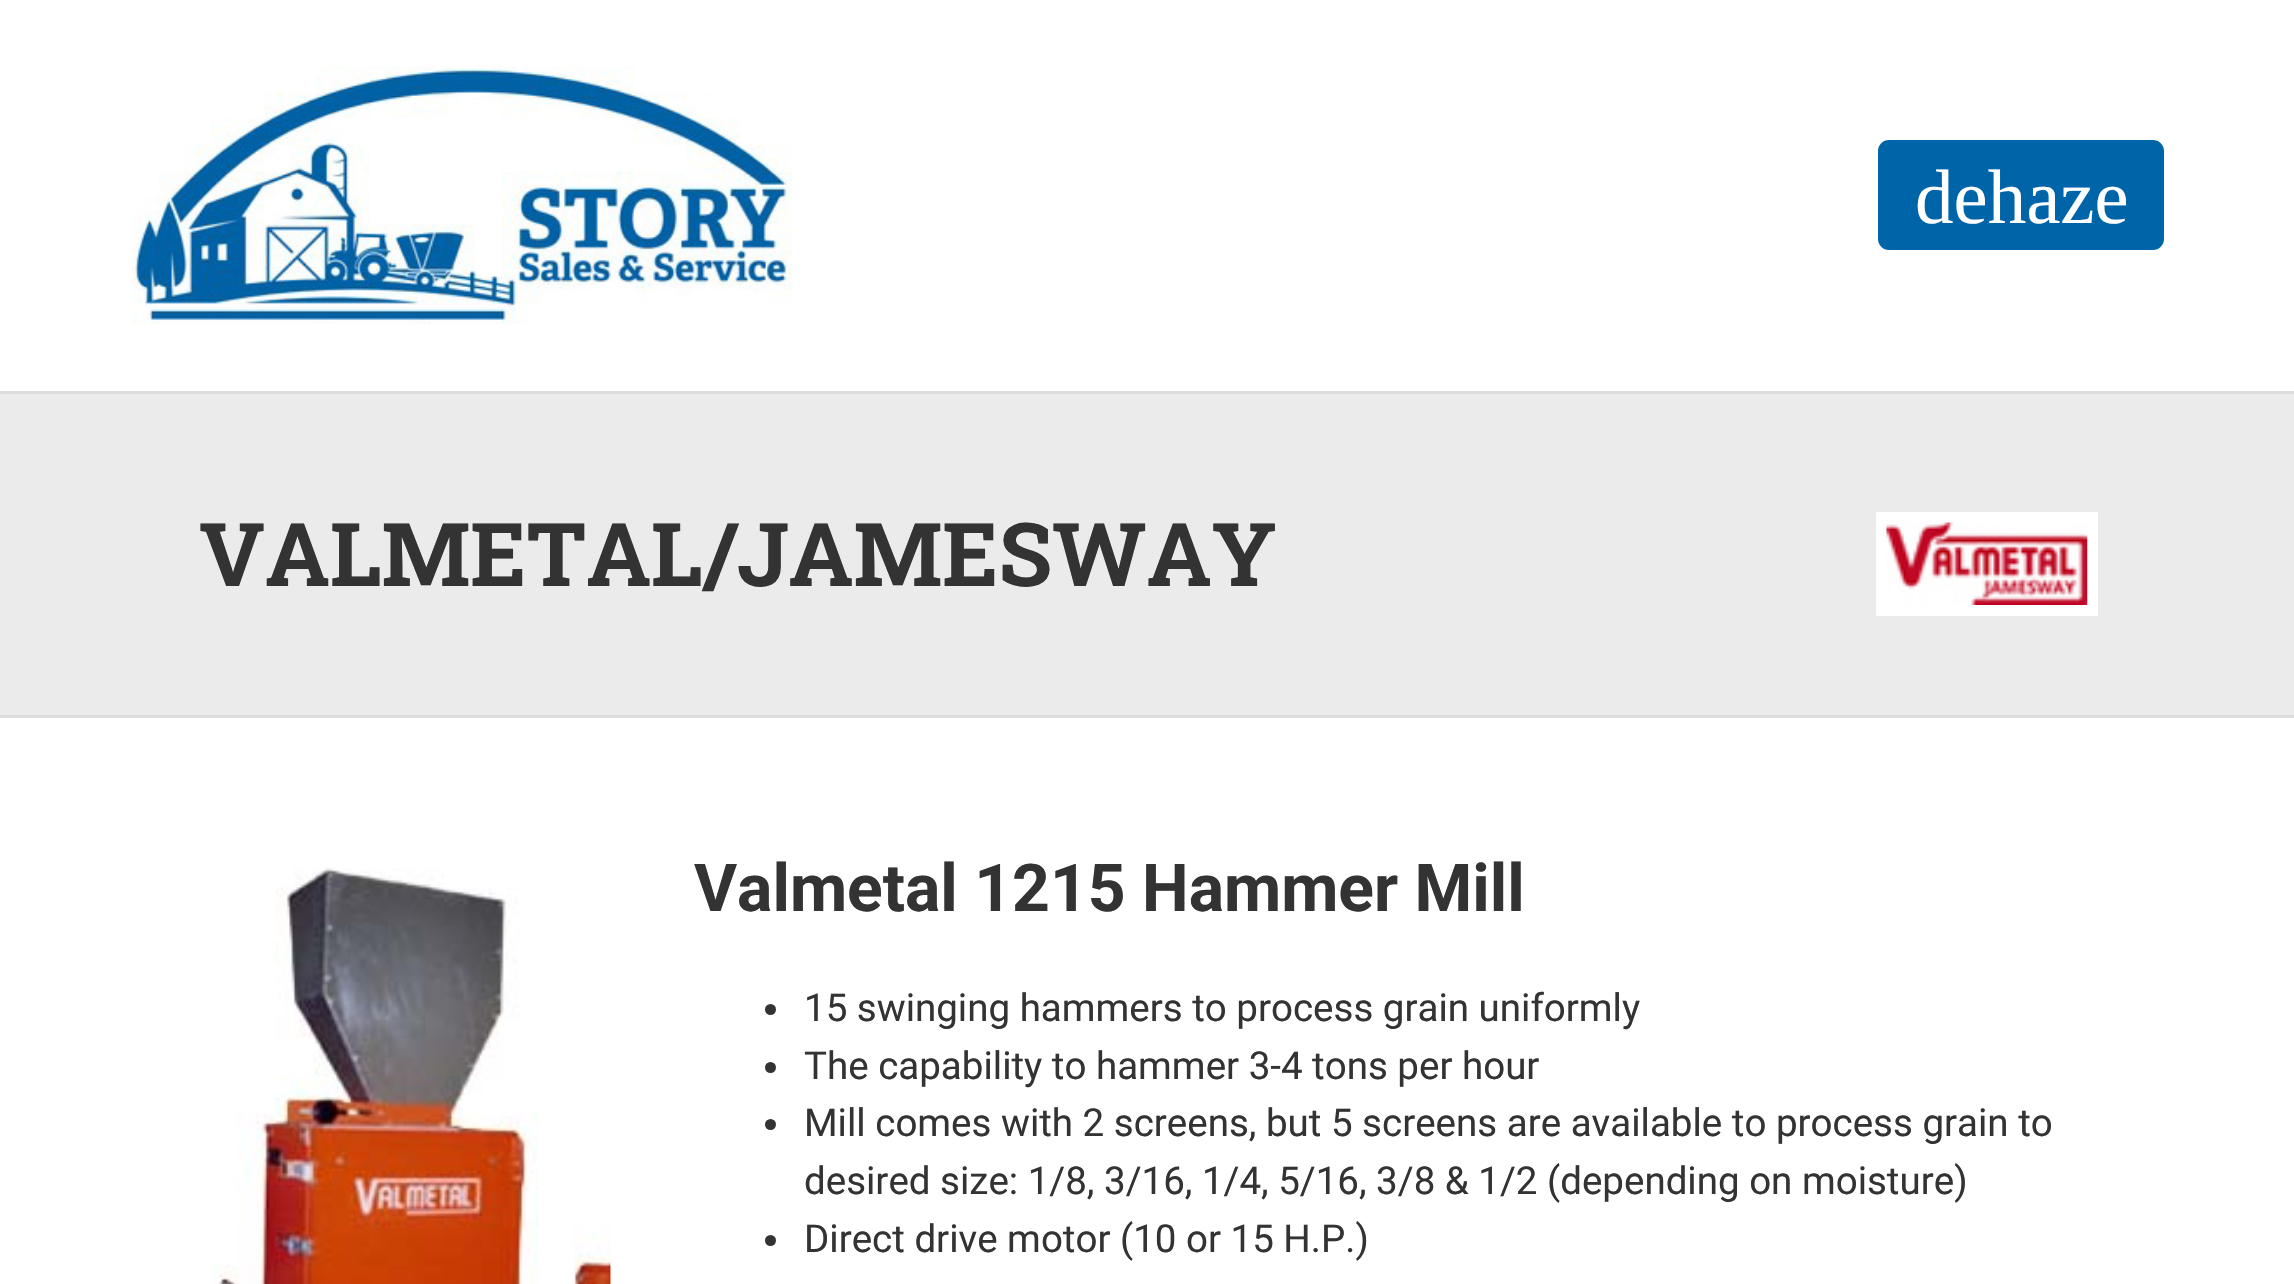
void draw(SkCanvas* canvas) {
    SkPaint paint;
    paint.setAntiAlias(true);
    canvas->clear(0xFFFFFFFF);
    paint.setColor(0xFFDDDDDD);
    canvas->drawRect(SkRect::MakeXYWH(0, 391, 2294, 3), paint);
    canvas->drawImageRect(SkImages::DeferredFromEncodedData(SkData::MakeFromFileName("img1.png")), SkRect::MakeXYWH(132, 66, 660, 259), SkSamplingOptions());
    paint.setColor(0xFF0064A8);
    canvas->drawRoundRect(SkRect::MakeXYWH(1879.5f, 141.5f, 283, 107), 9.5f, 9.5f, paint);
    paint.setStyle(SkPaint::kStroke_Style);
    paint.setStrokeWidth(3);
    canvas->drawRoundRect(SkRect::MakeXYWH(1879.5f, 141.5f, 283, 107), 9.5f, 9.5f, paint);
    SkFont font1(fontMgr->matchFamilyStyle("Liberation Serif", SkFontStyle::Normal()), 77);
    font1.setSubpixel(true);
    paint.setStyle(SkPaint::kFill_Style);
    paint.setColor(0xFFFFFFFF);
    canvas->drawString("dehaze", 1915, 223, font1, paint);
    paint.setColor(0xFFEBEBEB);
    canvas->drawRect(SkRect::MakeXYWH(0, 394, 2294, 321), paint);
    paint.setColor(0xFFDDDDDD);
    canvas->drawRect(SkRect::MakeXYWH(0, 715, 2294, 3), paint);
    SkFont font2(fontMgr->matchFamilyStyle("Roboto Slab", SkFontStyle::Bold()), 88);
    font2.setSubpixel(true);
    paint.setColor(0xFF333333);
    canvas->drawString("VALMETAL/JAMESWAY", 199, 586, font2, paint);
    paint.setColor(0xFFFFFFFF);
    canvas->drawRect(SkRect::MakeXYWH(1876, 512, 222, 104), paint);
    canvas->drawImageRect(SkImages::DeferredFromEncodedData(SkData::MakeFromFileName("img2.png")), SkRect::MakeXYWH(1886, 522, 202, 83), SkSamplingOptions());
    canvas->drawImageRect(SkImages::DeferredFromEncodedData(SkData::MakeFromFileName("img3.png")), SkRect::MakeXYWH(211, 868, 400, 416), SkSamplingOptions());
    SkFont font3(fontMgr->matchFamilyStyle("Roboto", SkFontStyle::Bold()), 66);
    font3.setSubpixel(true);
    paint.setColor(0xFF333333);
    canvas->drawString("Valmetal 1215 Hammer Mill", 694, 911, font3, paint);
    canvas->drawCircle(770.5f, 1009.5f, 5.5f, paint);
    SkFont font4(fontMgr->matchFamilyStyle("Roboto", SkFontStyle::Normal()), 38.5f);
    font4.setSubpixel(true);
    canvas->drawString("15 swinging hammers to process grain uniformly", 804, 1021, font4, paint);
    canvas->drawCircle(770.5f, 1067.5f, 5.5f, paint);
    canvas->drawString("The capability to hammer 3-4 tons per hour", 804, 1079, font4, paint);
    canvas->drawCircle(770.5f, 1124.5f, 5.5f, paint);
    canvas->drawString("Mill comes with 2 screens, but 5 screens are available to process grain to", 804, 1136, font4, paint);
    canvas->drawString("desired size: 1/8, 3/16, 1/4, 5/16, 3/8 & 1/2 (depending on moisture)", 804, 1194, font4, paint);
    canvas->drawCircle(770.5f, 1240.5f, 5.5f, paint);
    canvas->drawString("Direct drive motor (10 or 15 H.P.)", 804, 1252, font4, paint);
}
